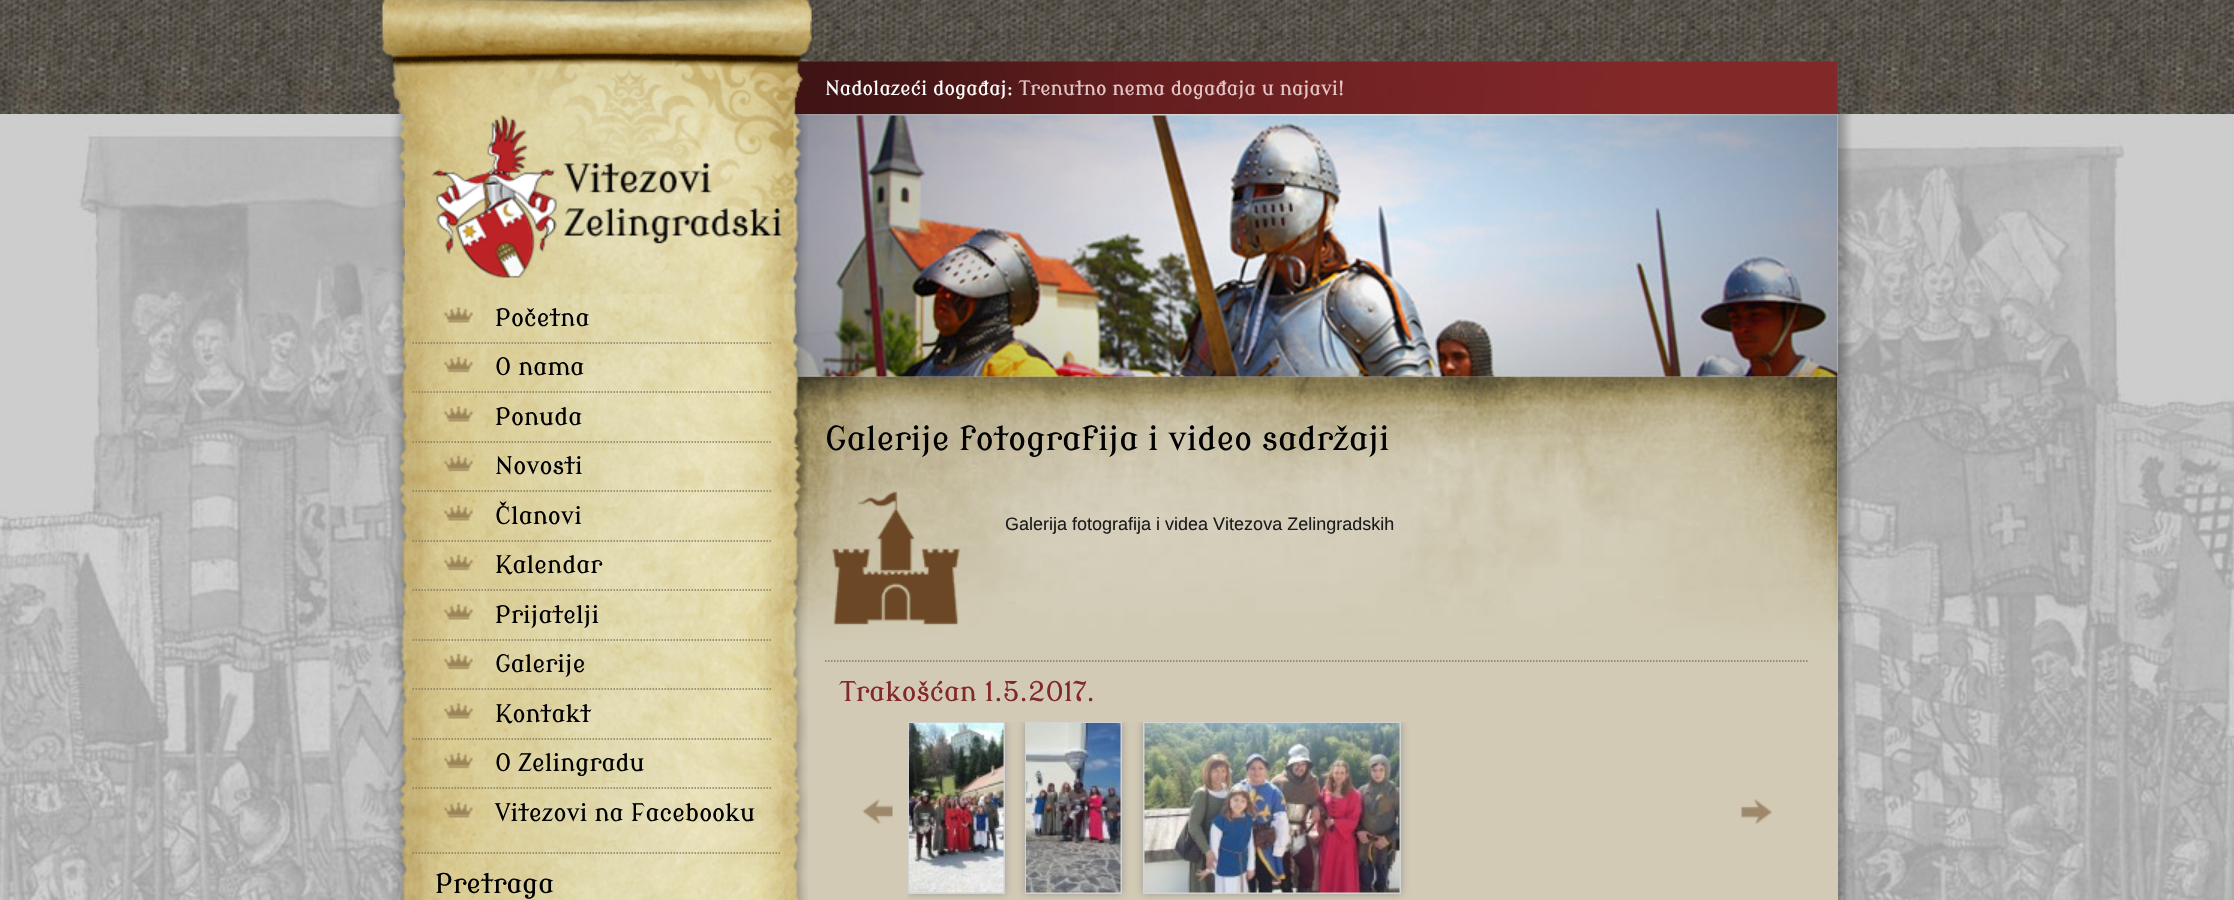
void draw(SkCanvas* canvas) {
    SkPaint paint;
    paint.setAntiAlias(true);
    canvas->clear(0xFFFFFFFF);
    canvas->drawImageRect(SkImages::DeferredFromEncodedData(SkData::MakeFromFileName("img1.png")), SkRect::MakeXYWH(0, 0, 2234, 114), SkSamplingOptions());
    canvas->drawImageRect(SkImages::DeferredFromEncodedData(SkData::MakeFromFileName("img2.png")), SkRect::MakeXYWH(794, 61, 1044, 53), SkSamplingOptions());
    canvas->drawImageRect(SkImages::DeferredFromEncodedData(SkData::MakeFromFileName("img3.png")), SkRect::MakeXYWH(382, 0, 430, 114), SkSamplingOptions());
    canvas->drawImageRect(SkImages::DeferredFromEncodedData(SkData::MakeFromFileName("img4.png")), SkRect::MakeXYWH(0, 114, 2234, 786), SkSamplingOptions());
    canvas->drawImageRect(SkImages::DeferredFromEncodedData(SkData::MakeFromFileName("img5.png")), SkRect::MakeXYWH(1838, 114, 14, 786), SkSamplingOptions());
    paint.setColor(0xFFD2CAB4);
    canvas->drawRect(SkRect::MakeXYWH(791, 114, 1047, 786), paint);
    canvas->drawImageRect(SkImages::DeferredFromEncodedData(SkData::MakeFromFileName("img21.png")), SkRect::MakeXYWH(791, 376, 1047, 281), SkSamplingOptions());
    canvas->drawImageRect(SkImages::DeferredFromEncodedData(SkData::MakeFromFileName("img20.png")), SkRect::MakeXYWH(791, 114, 1047, 263), SkSamplingOptions());
    canvas->drawImageRect(SkImages::DeferredFromEncodedData(SkData::MakeFromFileName("img6.png")), SkRect::MakeXYWH(391, 114, 417, 786), SkSamplingOptions());
    canvas->drawImageRect(SkImages::DeferredFromEncodedData(SkData::MakeFromFileName("img7.png")), SkRect::MakeXYWH(405, 114, 389, 180), SkSamplingOptions());
    canvas->drawImageRect(SkImages::DeferredFromEncodedData(SkData::MakeFromFileName("img8.png")), SkRect::MakeXYWH(431, 115, 352, 163), SkSamplingOptions());
    canvas->drawImageRect(SkImages::DeferredFromEncodedData(SkData::MakeFromFileName("img9.png")), SkRect::MakeXYWH(443, 307, 30, 16), SkSamplingOptions());
    SkFont font1(fontMgr->matchFamilyStyle("Modern Antiqua", SkFontStyle(500, SkFontStyle::kNormal_Width, SkFontStyle::kUpright_Slant)), 24);
    font1.setSubpixel(true);
    paint.setColor(0xFF000000);
    canvas->drawString("Početna", 495, 326, font1, paint);
    paint.setStyle(SkPaint::kStroke_Style);
    paint.setStrokeWidth(1.5f);
    paint.setColor(0xFF847D61);
    paint.setPathEffect(SkDashPathEffect::Make({{1.5f, 1.5f}}, 0));
    canvas->drawPath(SkPathBuilder().moveTo(412.5f, 343).lineTo(772.5f, 343).detach(), paint);
    paint.setPathEffect(nullptr);
    canvas->drawImageRect(SkImages::DeferredFromEncodedData(SkData::MakeFromFileName("img10.png")), SkRect::MakeXYWH(443, 356, 30, 17), SkSamplingOptions());
    paint.setStyle(SkPaint::kFill_Style);
    paint.setColor(0xFF000000);
    canvas->drawString("O nama", 495, 375, font1, paint);
    paint.setStyle(SkPaint::kStroke_Style);
    paint.setColor(0xFF847D61);
    paint.setPathEffect(SkDashPathEffect::Make({{1.5f, 1.5f}}, 0));
    canvas->drawPath(SkPathBuilder().moveTo(412.5f, 392).lineTo(772.5f, 392).detach(), paint);
    paint.setPathEffect(nullptr);
    canvas->drawImageRect(SkImages::DeferredFromEncodedData(SkData::MakeFromFileName("img11.png")), SkRect::MakeXYWH(443, 406, 30, 16), SkSamplingOptions());
    paint.setStyle(SkPaint::kFill_Style);
    paint.setColor(0xFF000000);
    canvas->drawString("Ponuda", 495, 425, font1, paint);
    paint.setStyle(SkPaint::kStroke_Style);
    paint.setColor(0xFF847D61);
    paint.setPathEffect(SkDashPathEffect::Make({{1.5f, 1.5f}}, 0));
    canvas->drawPath(SkPathBuilder().moveTo(412.5f, 442).lineTo(772.5f, 442).detach(), paint);
    paint.setPathEffect(nullptr);
    canvas->drawImageRect(SkImages::DeferredFromEncodedData(SkData::MakeFromFileName("img12.png")), SkRect::MakeXYWH(443, 455, 30, 17), SkSamplingOptions());
    paint.setStyle(SkPaint::kFill_Style);
    paint.setColor(0xFF000000);
    canvas->drawString("Novosti", 495, 474, font1, paint);
    paint.setStyle(SkPaint::kStroke_Style);
    paint.setColor(0xFF847D61);
    paint.setPathEffect(SkDashPathEffect::Make({{1.5f, 1.5f}}, 0));
    canvas->drawPath(SkPathBuilder().moveTo(412.5f, 491).lineTo(772.5f, 491).detach(), paint);
    paint.setPathEffect(nullptr);
    canvas->drawImageRect(SkImages::DeferredFromEncodedData(SkData::MakeFromFileName("img13.png")), SkRect::MakeXYWH(443, 505, 30, 16), SkSamplingOptions());
    paint.setStyle(SkPaint::kFill_Style);
    paint.setColor(0xFF000000);
    canvas->drawString("Članovi", 495, 524, font1, paint);
    paint.setStyle(SkPaint::kStroke_Style);
    paint.setColor(0xFF847D61);
    paint.setPathEffect(SkDashPathEffect::Make({{1.5f, 1.5f}}, 0));
    canvas->drawPath(SkPathBuilder().moveTo(412.5f, 541).lineTo(772.5f, 541).detach(), paint);
    paint.setPathEffect(nullptr);
    canvas->drawImageRect(SkImages::DeferredFromEncodedData(SkData::MakeFromFileName("img14.png")), SkRect::MakeXYWH(443, 554, 30, 17), SkSamplingOptions());
    paint.setStyle(SkPaint::kFill_Style);
    paint.setColor(0xFF000000);
    canvas->drawString("Kalendar", 495, 573, font1, paint);
    paint.setStyle(SkPaint::kStroke_Style);
    paint.setColor(0xFF847D61);
    paint.setPathEffect(SkDashPathEffect::Make({{1.5f, 1.5f}}, 0));
    canvas->drawPath(SkPathBuilder().moveTo(412.5f, 590).lineTo(772.5f, 590).detach(), paint);
    paint.setPathEffect(nullptr);
    canvas->drawImageRect(SkImages::DeferredFromEncodedData(SkData::MakeFromFileName("img15.png")), SkRect::MakeXYWH(443, 604, 30, 16), SkSamplingOptions());
    paint.setStyle(SkPaint::kFill_Style);
    paint.setColor(0xFF000000);
    canvas->drawString("Prijatelji", 495, 623, font1, paint);
    paint.setStyle(SkPaint::kStroke_Style);
    paint.setColor(0xFF847D61);
    paint.setPathEffect(SkDashPathEffect::Make({{1.5f, 1.5f}}, 0));
    canvas->drawPath(SkPathBuilder().moveTo(412.5f, 640).lineTo(772.5f, 640).detach(), paint);
    paint.setPathEffect(nullptr);
    canvas->drawImageRect(SkImages::DeferredFromEncodedData(SkData::MakeFromFileName("img16.png")), SkRect::MakeXYWH(443, 653, 30, 17), SkSamplingOptions());
    paint.setStyle(SkPaint::kFill_Style);
    paint.setColor(0xFF000000);
    canvas->drawString("Galerije", 495, 672, font1, paint);
    paint.setStyle(SkPaint::kStroke_Style);
    paint.setColor(0xFF847D61);
    paint.setPathEffect(SkDashPathEffect::Make({{1.5f, 1.5f}}, 0));
    canvas->drawPath(SkPathBuilder().moveTo(412.5f, 689).lineTo(772.5f, 689).detach(), paint);
    paint.setPathEffect(nullptr);
    canvas->drawImageRect(SkImages::DeferredFromEncodedData(SkData::MakeFromFileName("img17.png")), SkRect::MakeXYWH(443, 703, 30, 16), SkSamplingOptions());
    paint.setStyle(SkPaint::kFill_Style);
    paint.setColor(0xFF000000);
    canvas->drawString("Kontakt", 495, 722, font1, paint);
    paint.setStyle(SkPaint::kStroke_Style);
    paint.setColor(0xFF847D61);
    paint.setPathEffect(SkDashPathEffect::Make({{1.5f, 1.5f}}, 0));
    canvas->drawPath(SkPathBuilder().moveTo(412.5f, 739).lineTo(772.5f, 739).detach(), paint);
    paint.setPathEffect(nullptr);
    canvas->drawImageRect(SkImages::DeferredFromEncodedData(SkData::MakeFromFileName("img18.png")), SkRect::MakeXYWH(443, 752, 30, 17), SkSamplingOptions());
    paint.setStyle(SkPaint::kFill_Style);
    paint.setColor(0xFF000000);
    canvas->drawString("O Zelingradu", 495, 771, font1, paint);
    paint.setStyle(SkPaint::kStroke_Style);
    paint.setColor(0xFF847D61);
    paint.setPathEffect(SkDashPathEffect::Make({{1.5f, 1.5f}}, 0));
    canvas->drawPath(SkPathBuilder().moveTo(412.5f, 788).lineTo(772.5f, 788).detach(), paint);
    paint.setPathEffect(nullptr);
    canvas->drawImageRect(SkImages::DeferredFromEncodedData(SkData::MakeFromFileName("img19.png")), SkRect::MakeXYWH(443, 802, 30, 16), SkSamplingOptions());
    paint.setStyle(SkPaint::kFill_Style);
    paint.setColor(0xFF000000);
    canvas->drawString("Vitezovi na Facebooku", 495, 821, font1, paint);
    paint.setStyle(SkPaint::kStroke_Style);
    paint.setColor(0xFF847D61);
    paint.setPathEffect(SkDashPathEffect::Make({{1.5f, 1.5f}}, 0));
    canvas->drawPath(SkPathBuilder().moveTo(412.5f, 853).lineTo(780, 853).detach(), paint);
    paint.setPathEffect(nullptr);
    SkFont font2(fontMgr->matchFamilyStyle("Modern Antiqua", SkFontStyle(500, SkFontStyle::kNormal_Width, SkFontStyle::kUpright_Slant)), 27);
    font2.setSubpixel(true);
    paint.setStyle(SkPaint::kFill_Style);
    paint.setColor(0xFF000000);
    canvas->drawString("Pretraga", 435, 893, font2, paint);
    SkFont font3(fontMgr->matchFamilyStyle("Modern Antiqua", SkFontStyle(500, SkFontStyle::kNormal_Width, SkFontStyle::kUpright_Slant)), 19.5f);
    font3.setSubpixel(true);
    paint.setColor(0xFFFFFFFF);
    canvas->drawString("Nadolazeći događaj:", 825, 95, font3, paint);
    paint.setColor(0xFFE4C6C6);
    canvas->drawString("Trenutno nema događaja u najavi!", 1019, 95, font3, paint);
    SkFont font4(fontMgr->matchFamilyStyle("Modern Antiqua", SkFontStyle(500, SkFontStyle::kNormal_Width, SkFontStyle::kUpright_Slant)), 33);
    font4.setSubpixel(true);
    paint.setColor(0xFF000000);
    canvas->drawString("Galerije fotografija i video sadržaji", 825, 450, font4, paint);
    canvas->drawImageRect(SkImages::DeferredFromEncodedData(SkData::MakeFromFileName("img22.png")), SkRect::MakeXYWH(832, 491, 129, 134), SkSamplingOptions());
    paint.setStyle(SkPaint::kStroke_Style);
    paint.setColor(0xFF7D786A);
    paint.setPathEffect(SkDashPathEffect::Make({{1.5f, 1.5f}}, 0));
    canvas->drawPath(SkPathBuilder().moveTo(825, 661).lineTo(1807.5f, 661).detach(), paint);
    paint.setPathEffect(nullptr);
    SkFont font5(fontMgr->matchFamilyStyle("Liberation Sans", SkFontStyle::Normal()), 18);
    font5.setSubpixel(true);
    paint.setStyle(SkPaint::kFill_Style);
    paint.setColor(0xFF1C1C1C);
    canvas->drawString("Galerija fotografija i videa Vitezova Zelingradskih", 1005, 530, font5, paint);
    paint.setColor(0xFF832829);
    canvas->drawString("Trakošćan 1.5.2017.", 840, 701, font2, paint);
    canvas->drawImageRect(SkImages::DeferredFromEncodedData(SkData::MakeFromFileName("img23.png")), SkRect::MakeXYWH(862, 799, 31, 25), SkSamplingOptions());
    canvas->save();
    canvas->clipRect(SkRect::MakeXYWH(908, 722, 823, 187));
    paint.setColor(0xFF999999);
    paint.setMaskFilter(SkMaskFilter::MakeBlur(kNormal_SkBlurStyle, 4));
    canvas->drawRect(SkRect::MakeXYWH(908, 722, 97, 172), paint);
    paint.setMaskFilter(nullptr);
    paint.setMaskFilter(SkMaskFilter::MakeBlur(kNormal_SkBlurStyle, 4));
    canvas->drawRect(SkRect::MakeXYWH(1025, 722, 97, 172), paint);
    paint.setMaskFilter(nullptr);
    paint.setMaskFilter(SkMaskFilter::MakeBlur(kNormal_SkBlurStyle, 4));
    canvas->drawRect(SkRect::MakeXYWH(1143, 722, 258, 172), paint);
    paint.setMaskFilter(nullptr);
    canvas->restore();
    paint.setStyle(SkPaint::kStroke_Style);
    paint.setStrokeWidth(2);
    paint.setColor(0xFFD3D3D3);
    canvas->drawRect(SkRect::MakeXYWH(909, 723, 95, 170), paint);
    canvas->drawRect(SkRect::MakeXYWH(1026, 723, 95, 170), paint);
    canvas->drawRect(SkRect::MakeXYWH(1144, 723, 256, 170), paint);
    canvas->drawImageRect(SkImages::DeferredFromEncodedData(SkData::MakeFromFileName("img24.png")), SkRect::MakeXYWH(909, 723, 95, 170), SkSamplingOptions());
    canvas->drawImageRect(SkImages::DeferredFromEncodedData(SkData::MakeFromFileName("img25.png")), SkRect::MakeXYWH(1026, 723, 95, 170), SkSamplingOptions());
    canvas->drawImageRect(SkImages::DeferredFromEncodedData(SkData::MakeFromFileName("img26.png")), SkRect::MakeXYWH(1144, 723, 256, 170), SkSamplingOptions());
    canvas->drawImageRect(SkImages::DeferredFromEncodedData(SkData::MakeFromFileName("img27.png")), SkRect::MakeXYWH(1741, 799, 31, 25), SkSamplingOptions());
}
